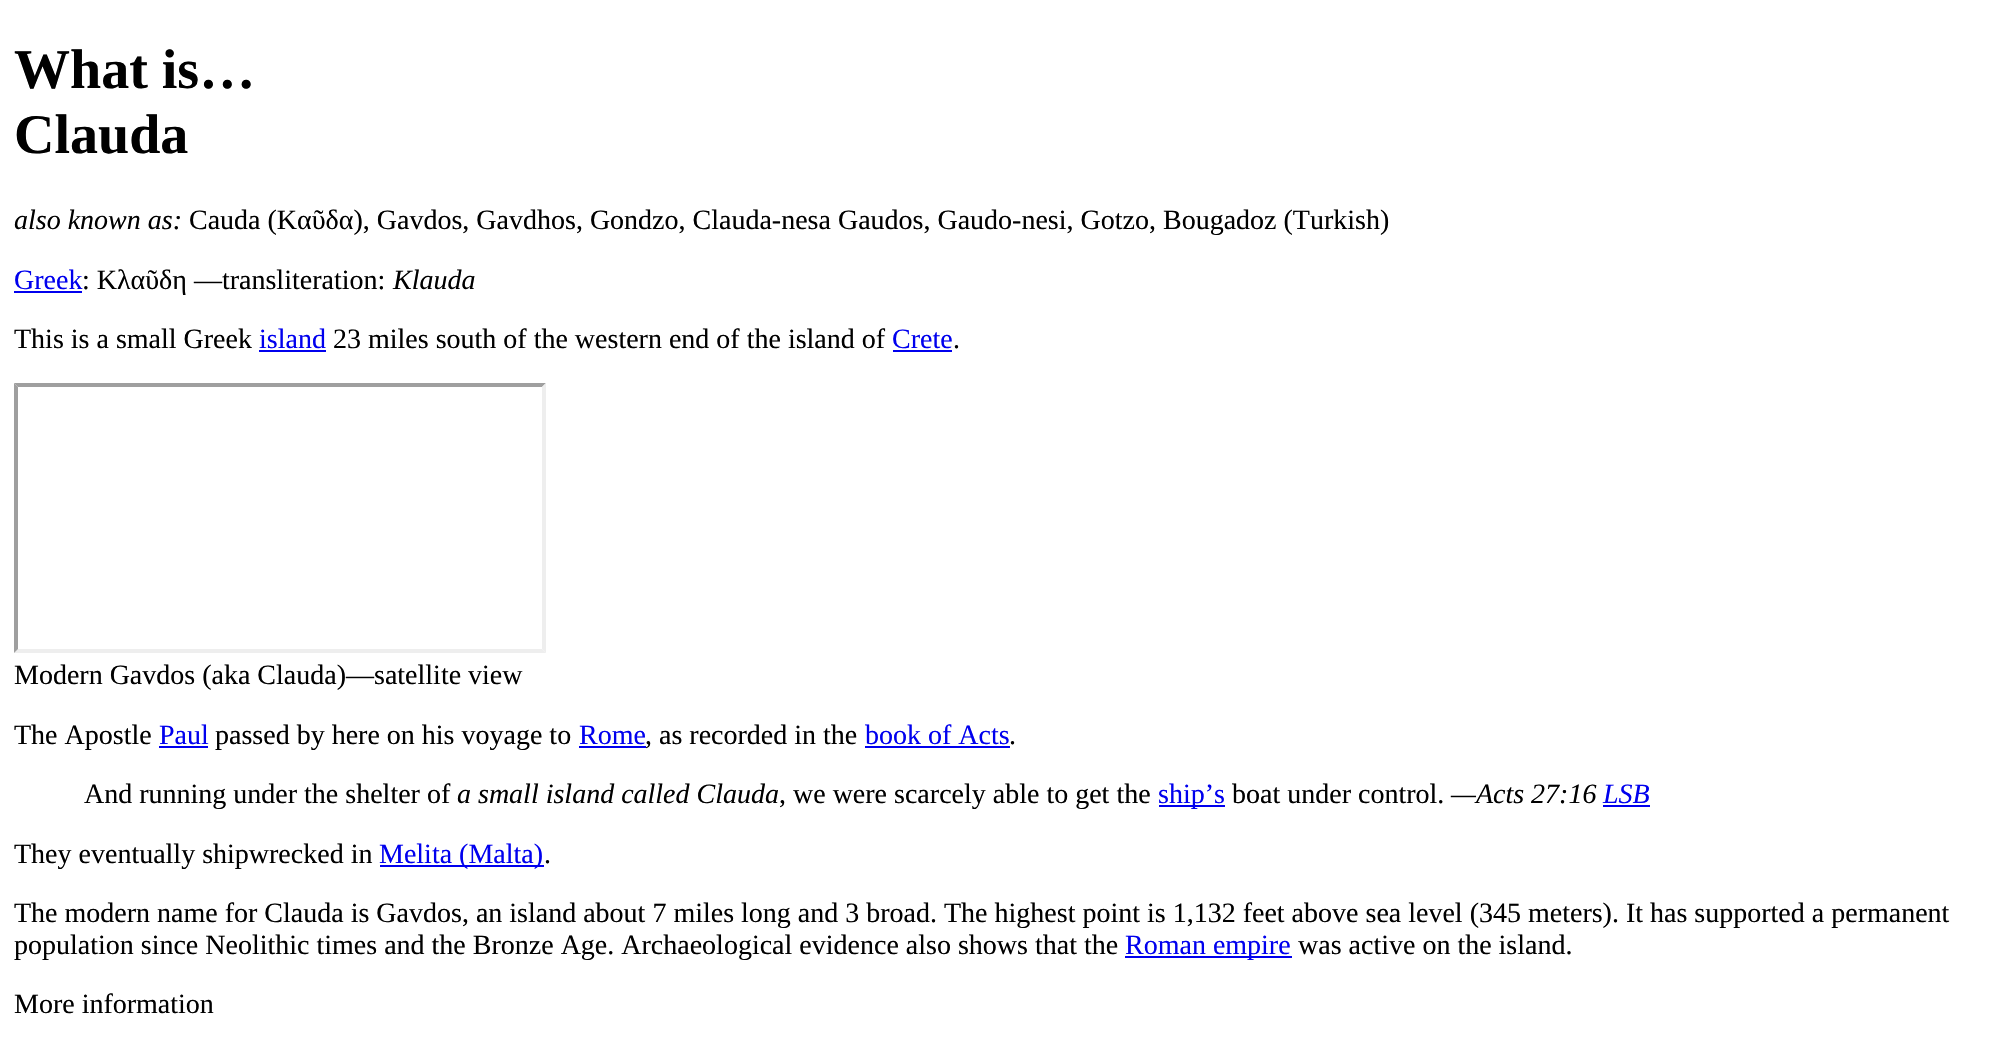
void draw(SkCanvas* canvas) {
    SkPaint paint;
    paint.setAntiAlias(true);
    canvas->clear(0xFFFFFFFF);
    SkFont font1(fontMgr->matchFamilyStyle("Liberation Serif", SkFontStyle::Bold()), 56);
    font1.setSubpixel(true);
    paint.setColor(0xFF000000);
    canvas->drawString("What is…", 14, 88, font1, paint);
    canvas->drawString("Clauda", 14, 153, font1, paint);
    SkFont font2(fontMgr->matchFamilyStyle("Liberation Serif", SkFontStyle::Italic()), 28);
    font2.setSubpixel(true);
    canvas->drawString("also known as:", 14, 229, font2, paint);
    SkFont font3(fontMgr->matchFamilyStyle("Liberation Serif", SkFontStyle::Normal()), 28);
    font3.setSubpixel(true);
    canvas->drawString("Cauda (Καῦδα), Gavdos, Gavdhos, Gondzo, Clauda-nesa Gaudos, Gaudo-nesi, Gotzo, Bougadoz (Turkish)", 189, 229, font3, paint);
    paint.setColor(0xFF0000EE);
    canvas->drawString("Greek", 14, 289, font3, paint);
    canvas->drawRect(SkRect::MakeXYWH(14, 291, 68, 2), paint);
    paint.setColor(0xFF000000);
    canvas->drawString(": Κλαῦδη —transliteration:", 82, 289, font3, paint);
    canvas->drawString("Klauda", 393, 289, font2, paint);
    canvas->drawString("This is a small Greek", 14, 348, font3, paint);
    paint.setColor(0xFF0000EE);
    canvas->drawString("island", 259, 348, font3, paint);
    canvas->drawRect(SkRect::MakeXYWH(259, 350, 67, 2), paint);
    paint.setColor(0xFF000000);
    canvas->drawString("23 miles south of the western end of the island of", 333, 348, font3, paint);
    paint.setColor(0xFF0000EE);
    canvas->drawString("Crete", 892, 348, font3, paint);
    canvas->drawRect(SkRect::MakeXYWH(893, 350, 59, 2), paint);
    paint.setColor(0xFF000000);
    canvas->drawString(".", 953, 348, font3, paint);
    paint.setColor(0xFF9F9F9F);
    canvas->drawPath(SkPathBuilder().moveTo(14, 383).lineTo(546, 383).lineTo(542, 387).lineTo(18, 387).close().detach(), paint);
    paint.setColor(0xFFEEEEEE);
    canvas->drawPath(SkPathBuilder().moveTo(546, 383).lineTo(546, 653).lineTo(542, 649).lineTo(542, 387).close().detach(), paint);
    canvas->drawPath(SkPathBuilder().moveTo(546, 653).lineTo(14, 653).lineTo(18, 649).lineTo(542, 649).close().detach(), paint);
    paint.setColor(0xFF9F9F9F);
    canvas->drawPath(SkPathBuilder().moveTo(14, 653).lineTo(14, 383).lineTo(18, 387).lineTo(18, 649).close().detach(), paint);
    paint.setColor(0xFF000000);
    canvas->drawString("Modern Gavdos (aka Clauda)—satellite view", 14, 684, font3, paint);
    canvas->drawString("The Apostle", 14, 744, font3, paint);
    paint.setColor(0xFF0000EE);
    canvas->drawString("Paul", 159, 744, font3, paint);
    canvas->drawRect(SkRect::MakeXYWH(159, 746, 49, 2), paint);
    paint.setColor(0xFF000000);
    canvas->drawString("passed by here on his voyage to", 215, 744, font3, paint);
    paint.setColor(0xFF0000EE);
    canvas->drawString("Rome", 579, 744, font3, paint);
    canvas->drawRect(SkRect::MakeXYWH(579, 746, 67, 2), paint);
    paint.setColor(0xFF000000);
    canvas->drawString(", as recorded in the", 645, 744, font3, paint);
    paint.setColor(0xFF0000EE);
    canvas->drawString("book of Acts", 865, 744, font3, paint);
    canvas->drawRect(SkRect::MakeXYWH(865, 746, 145, 2), paint);
    paint.setColor(0xFF000000);
    canvas->drawString(".", 1009, 744, font3, paint);
    canvas->drawString("And running under the shelter of", 84, 803, font3, paint);
    canvas->drawString("a small island called Clauda", 457, 803, font2, paint);
    canvas->drawString(", we were scarcely able to get the", 779, 803, font3, paint);
    paint.setColor(0xFF0000EE);
    canvas->drawRect(SkRect::MakeXYWH(1159, 805, 66, 2), paint);
    canvas->drawString("ship’s", 1158, 803, font3, paint);
    paint.setColor(0xFF000000);
    canvas->drawString("boat under control.", 1232, 803, font3, paint);
    canvas->drawString("—Acts 27:16", 1451, 803, font2, paint);
    paint.setColor(0xFF0000EE);
    canvas->drawString("LSB", 1603, 803, font2, paint);
    canvas->drawRect(SkRect::MakeXYWH(1603, 805, 47, 2), paint);
    paint.setColor(0xFF000000);
    canvas->drawString("They eventually shipwrecked in", 14, 863, font3, paint);
    paint.setColor(0xFF0000EE);
    canvas->drawRect(SkRect::MakeXYWH(380, 865, 164, 2), paint);
    canvas->drawString("Melita (Malta)", 379, 863, font3, paint);
    paint.setColor(0xFF000000);
    canvas->drawString(".", 544, 863, font3, paint);
    canvas->drawString("The modern name for Clauda is Gavdos, an island about 7 miles long and 3 broad. The highest point is 1,132 feet above sea level (345 meters). It has supported a permanent", 14, 922, font3, paint);
    canvas->drawString("population since Neolithic times and the Bronze Age. Archaeological evidence also shows that the", 14, 954, font3, paint);
    paint.setColor(0xFF0000EE);
    canvas->drawRect(SkRect::MakeXYWH(1125, 956, 167, 2), paint);
    canvas->drawString("Roman empire", 1125, 954, font3, paint);
    paint.setColor(0xFF000000);
    canvas->drawString("was active on the island.", 1298, 954, font3, paint);
    canvas->drawString("More information", 14, 1013, font3, paint);
}
